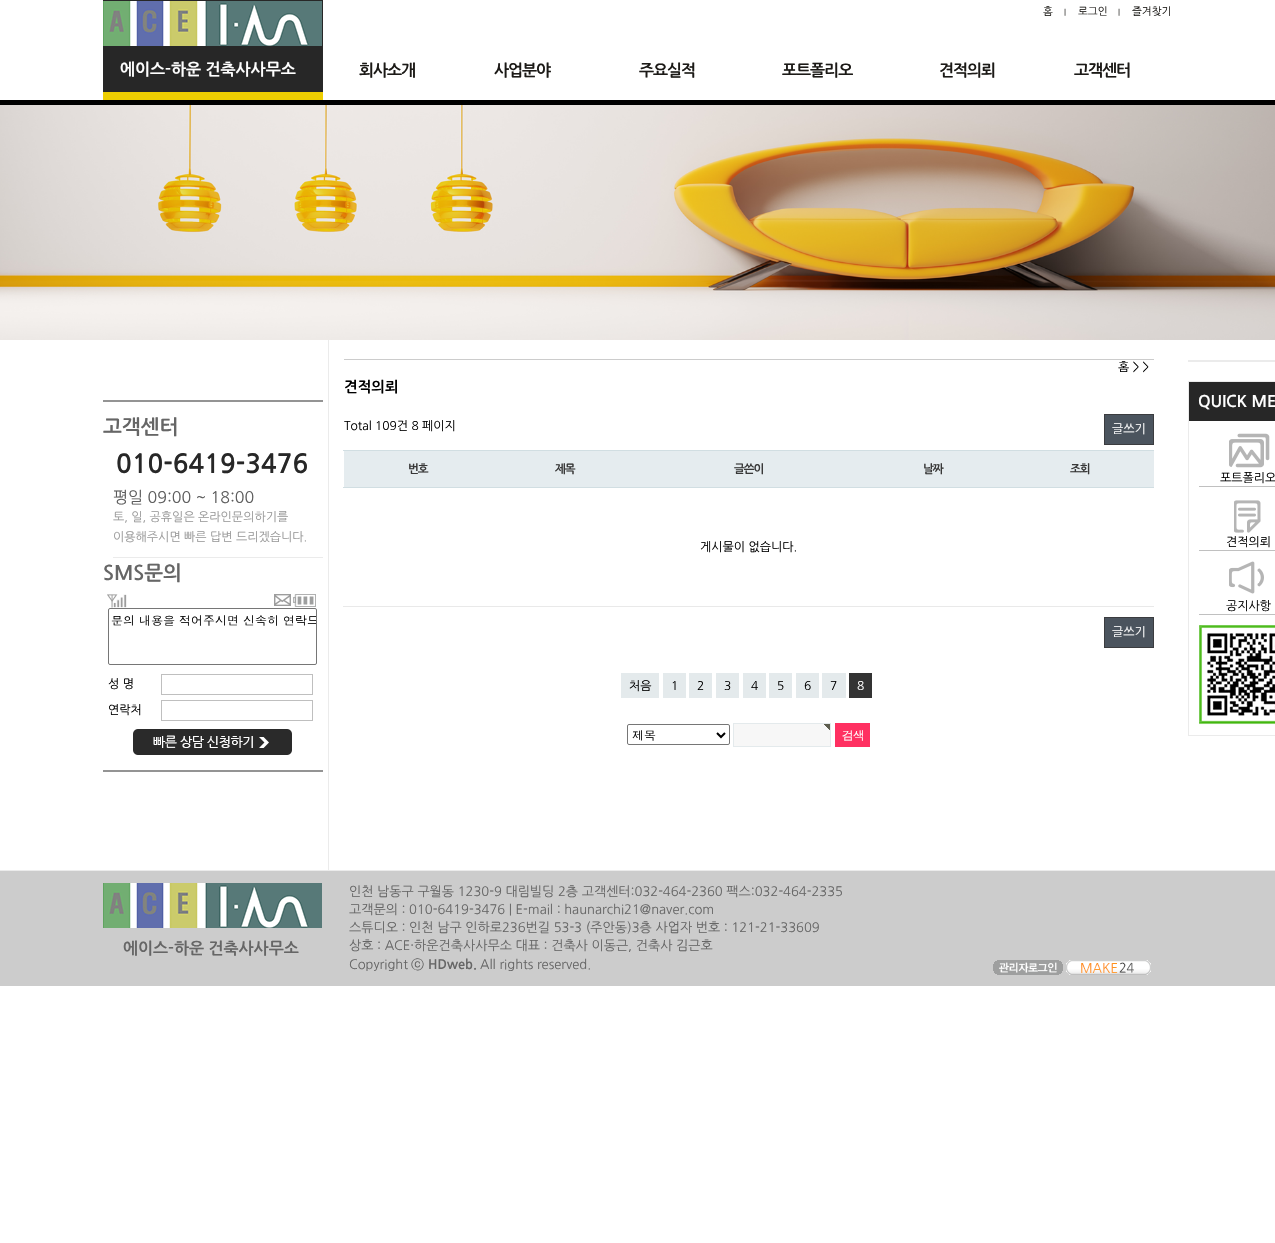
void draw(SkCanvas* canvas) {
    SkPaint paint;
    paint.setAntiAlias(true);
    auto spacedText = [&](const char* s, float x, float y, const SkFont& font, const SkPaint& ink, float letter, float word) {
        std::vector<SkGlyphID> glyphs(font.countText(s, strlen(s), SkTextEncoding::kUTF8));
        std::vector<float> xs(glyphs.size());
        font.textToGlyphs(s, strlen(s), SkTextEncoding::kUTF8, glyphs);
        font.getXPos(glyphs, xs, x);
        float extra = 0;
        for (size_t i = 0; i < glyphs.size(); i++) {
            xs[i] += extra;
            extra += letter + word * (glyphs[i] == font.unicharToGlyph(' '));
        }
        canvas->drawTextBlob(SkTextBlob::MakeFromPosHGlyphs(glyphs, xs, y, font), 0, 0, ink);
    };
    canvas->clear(0xFFFFFFFF);
    paint.setColor(0xFF000000);
    canvas->drawRect(SkRect::MakeXYWH(0, 100, 1275, 5), paint);
    SkFont font1(fontMgr->matchFamilyStyle("NanumGothic", SkFontStyle::Normal()), 10.5f);
    font1.setSubpixel(true);
    paint.setColor(0xFF1C1A17);
    canvas->drawString("홈", 1043, 15, font1, paint);
    SkFont font2(fontMgr->matchFamilyStyle("NanumGothic", SkFontStyle::Normal()), 8);
    font2.setSubpixel(true);
    canvas->drawString("|", 1064, 15, font2, paint);
    canvas->drawString("로그인", 1078, 15, font1, paint);
    canvas->drawString("|", 1118, 15, font2, paint);
    canvas->drawString("즐겨찾기", 1132, 15, font1, paint);
    canvas->drawImageRect(SkImages::DeferredFromEncodedData(SkData::MakeFromFileName("img1.png")), SkRect::MakeXYWH(103, 0, 220, 100), SkSamplingOptions());
    canvas->drawImageRect(SkImages::DeferredFromEncodedData(SkData::MakeFromFileName("img2.png")), SkRect::MakeXYWH(103, 1, 219, 45), SkSamplingOptions());
    SkFont font3(fontMgr->matchFamilyStyle("NanumGothic", SkFontStyle::Bold()), 16);
    font3.setSubpixel(true);
    paint.setColor(0xFFFFFFFF);
    canvas->drawString("에이스-하운 건축사사무소", 120, 75, font3, paint);
    paint.setColor(0xFF1C1A17);
    spacedText("회사소개", 359, 76, font3, paint, -1, 0);
    spacedText("사업분야", 494, 76, font3, paint, -1, 0);
    spacedText("주요실적", 639, 76, font3, paint, -1, 0);
    spacedText("포트폴리오", 782, 76, font3, paint, -1, 0);
    spacedText("견적의뢰", 939, 76, font3, paint, -1, 0);
    spacedText("고객센터", 1074, 76, font3, paint, -1, 0);
    canvas->drawImageRect(SkImages::DeferredFromEncodedData(SkData::MakeFromFileName("img3.png")), SkRect::MakeXYWH(0, 105, 1275, 235), SkSamplingOptions());
    paint.setColor(0xFF949494);
    canvas->drawRect(SkRect::MakeXYWH(103, 400, 220, 2), paint);
    canvas->drawRect(SkRect::MakeXYWH(103, 770, 220, 2), paint);
    SkFont font4(fontMgr->matchFamilyStyle("NanumGothic", SkFontStyle::Bold()), 20);
    font4.setSubpixel(true);
    paint.setColor(0xFF666666);
    canvas->drawString("고객센터", 103, 434, font4, paint);
    SkFont font5(fontMgr->matchFamilyStyle("NanumGothic", SkFontStyle::Bold()), 26);
    font5.setSubpixel(true);
    paint.setColor(0xFF272727);
    canvas->drawString("010-6419-3476", 116, 473, font5, paint);
    SkFont font6(fontMgr->matchFamilyStyle("NanumGothic", SkFontStyle::Normal()), 16);
    font6.setSubpixel(true);
    paint.setColor(0xFF5C5C5C);
    canvas->drawString("평일 09:00 ~ 18:00", 113, 503, font6, paint);
    paint.setColor(0xFFEBEBEB);
    canvas->drawRect(SkRect::MakeXYWH(113, 557, 210, 1), paint);
    SkFont font7(fontMgr->matchFamilyStyle("NanumGothic", SkFontStyle::Normal()), 12);
    font7.setSubpixel(true);
    paint.setColor(0xFF999999);
    canvas->drawString("토, 일, 공휴일은 온라인문의하기를", 113, 521, font7, paint);
    canvas->drawString("이용해주시면 빠른 답변 드리겠습니다.", 113, 541, font7, paint);
    paint.setColor(0xFF666666);
    canvas->drawString("SMS문의", 103, 580, font4, paint);
    canvas->drawImageRect(SkImages::DeferredFromEncodedData(SkData::MakeFromFileName("img4.png")), SkRect::MakeXYWH(107, 594, 209, 14), SkSamplingOptions());
    paint.setStyle(SkPaint::kStroke_Style);
    paint.setStrokeWidth(1);
    paint.setColor(0xFF767676);
    canvas->drawRoundRect(SkRect::MakeXYWH(108.5f, 608.5f, 208, 56), 1.5f, 1.5f, paint);
    SkFont font8(fontMgr->matchFamilyStyle("Dotum", SkFontStyle::Normal()), 12);
    font8.setSubpixel(true);
    paint.setStyle(SkPaint::kFill_Style);
    paint.setColor(0xFF000000);
    canvas->drawString("문의 내용을 적어주시면 신속히 연락", 111, 625, font8, paint);
    canvas->save();
    canvas->clipRect(SkRect::MakeXYWH(109, 609, 207, 55));
    canvas->drawString("드", 307, 625, font8, paint);
    canvas->restore();
    canvas->drawString("성 명", 108, 688, font7, paint);
    paint.setStyle(SkPaint::kStroke_Style);
    paint.setColor(0xFFBFBFBF);
    canvas->drawRect(SkRect::MakeXYWH(161.5f, 674.5f, 151, 20), paint);
    paint.setStyle(SkPaint::kFill_Style);
    paint.setColor(0xFF000000);
    canvas->drawString("연락처", 108, 714, font7, paint);
    paint.setStyle(SkPaint::kStroke_Style);
    paint.setColor(0xFFBFBFBF);
    canvas->drawRect(SkRect::MakeXYWH(161.5f, 700.5f, 151, 20), paint);
    canvas->drawImageRect(SkImages::DeferredFromEncodedData(SkData::MakeFromFileName("img5.png")), SkRect::MakeXYWH(133, 729, 159, 26), SkSamplingOptions());
    paint.setStyle(SkPaint::kFill_Style);
    paint.setColor(0xFFEBEBEB);
    canvas->drawRect(SkRect::MakeXYWH(328, 340, 1, 530), paint);
    paint.setColor(0xFFCCCCCC);
    canvas->drawRect(SkRect::MakeXYWH(344, 359, 810, 1), paint);
    paint.setColor(0xFF000000);
    canvas->drawString("홈 > >", 1118, 371, font7, paint);
    SkFont font9(fontMgr->matchFamilyStyle("NanumGothic", SkFontStyle::Bold()), 14.5f);
    font9.setSubpixel(true);
    canvas->drawString("견적의뢰", 344, 392, font9, paint);
    canvas->drawString("Total 109건 8 페이지", 344, 430, font7, paint);
    paint.setColor(0xFF4B545E);
    canvas->drawRect(SkRect::MakeXYWH(1104.5f, 414.5f, 49, 30), paint);
    paint.setStyle(SkPaint::kStroke_Style);
    paint.setColor(0xFF3B3C3F);
    canvas->drawRect(SkRect::MakeXYWH(1104.5f, 414.5f, 49, 30), paint);
    paint.setStyle(SkPaint::kFill_Style);
    paint.setColor(0xFFFFFFFF);
    canvas->drawString("글쓰기", 1112, 433, font7, paint);
    paint.setColor(0xFFE5ECEF);
    canvas->drawRect(SkRect::MakeXYWH(344, 451, 810, 36), paint);
    SkFont font10(fontMgr->matchFamilyStyle("NanumGothic", SkFontStyle::Bold()), 11.5f);
    font10.setSubpixel(true);
    paint.setColor(0xFF383838);
    spacedText("번호", 408, 473, font10, paint, -1, 0);
    spacedText("제목", 555, 473, font10, paint, -1, 0);
    spacedText("글쓴이", 734, 473, font10, paint, -1, 0);
    spacedText("날짜", 923, 473, font10, paint, -1, 0);
    paint.setColor(0xFFD1DEE2);
    canvas->drawRect(SkRect::MakeXYWH(343, 450, 811, 1), paint);
    canvas->drawRect(SkRect::MakeXYWH(343, 487, 811, 1), paint);
    paint.setColor(0xFF383838);
    spacedText("조회", 1070, 473, font10, paint, -1, 0);
    paint.setColor(0xFFE9E9E9);
    canvas->drawRect(SkRect::MakeXYWH(343, 606, 811, 1), paint);
    paint.setColor(0xFF000000);
    canvas->drawString("게시물이 없습니다.", 700, 551, font7, paint);
    paint.setColor(0xFF4B545E);
    canvas->drawRect(SkRect::MakeXYWH(1104.5f, 617.5f, 49, 30), paint);
    paint.setStyle(SkPaint::kStroke_Style);
    paint.setColor(0xFF3B3C3F);
    canvas->drawRect(SkRect::MakeXYWH(1104.5f, 617.5f, 49, 30), paint);
    paint.setStyle(SkPaint::kFill_Style);
    paint.setColor(0xFFFFFFFF);
    canvas->drawString("글쓰기", 1112, 636, font7, paint);
    paint.setColor(0xFFE4EAEC);
    canvas->drawRect(SkRect::MakeXYWH(621, 673, 38, 25), paint);
    paint.setColor(0xFF000000);
    canvas->drawString("처음", 629, 690, font7, paint);
    paint.setColor(0xFFE4EAEC);
    canvas->drawRect(SkRect::MakeXYWH(663, 673, 23, 25), paint);
    paint.setColor(0xFF000000);
    canvas->drawString("1", 671, 690, font7, paint);
    paint.setColor(0xFFE4EAEC);
    canvas->drawRect(SkRect::MakeXYWH(689, 673, 23, 25), paint);
    paint.setColor(0xFF000000);
    canvas->drawString("2", 697, 690, font7, paint);
    paint.setColor(0xFFE4EAEC);
    canvas->drawRect(SkRect::MakeXYWH(716, 673, 23, 25), paint);
    paint.setColor(0xFF000000);
    canvas->drawString("3", 724, 690, font7, paint);
    paint.setColor(0xFFE4EAEC);
    canvas->drawRect(SkRect::MakeXYWH(743, 673, 23, 25), paint);
    paint.setColor(0xFF000000);
    canvas->drawString("4", 751, 690, font7, paint);
    paint.setColor(0xFFE4EAEC);
    canvas->drawRect(SkRect::MakeXYWH(769, 673, 23, 25), paint);
    paint.setColor(0xFF000000);
    canvas->drawString("5", 777, 690, font7, paint);
    paint.setColor(0xFFE4EAEC);
    canvas->drawRect(SkRect::MakeXYWH(796, 673, 23, 25), paint);
    paint.setColor(0xFF000000);
    canvas->drawString("6", 804, 690, font7, paint);
    paint.setColor(0xFFE4EAEC);
    canvas->drawRect(SkRect::MakeXYWH(822, 673, 24, 25), paint);
    paint.setColor(0xFF000000);
    canvas->drawString("7", 830, 690, font7, paint);
    paint.setColor(0xFF333333);
    canvas->drawRect(SkRect::MakeXYWH(849, 673, 23, 25), paint);
    paint.setColor(0xFFFFFFFF);
    canvas->drawString("8", 857, 690, font7, paint);
    paint.setStyle(SkPaint::kStroke_Style);
    paint.setColor(0xFF767676);
    canvas->drawRoundRect(SkRect::MakeXYWH(627.5f, 724.5f, 102, 20), 1.5f, 1.5f, paint);
    paint.setStrokeWidth(2);
    paint.setColor(0xFF000000);
    canvas->drawPath(SkPathBuilder().moveTo(717, 733).lineTo(721, 737).lineTo(725, 733).detach(), paint);
    paint.setStyle(SkPaint::kFill_Style);
    canvas->drawString("제목", 632, 740, font8, paint);
    paint.setColor(0xFFF7F7F7);
    canvas->drawRect(SkRect::MakeXYWH(734, 724, 96, 22), paint);
    canvas->drawImageRect(SkImages::DeferredFromEncodedData(SkData::MakeFromFileName("img6.png")), SkRect::MakeXYWH(824, 724, 6, 6), SkSamplingOptions());
    paint.setStyle(SkPaint::kStroke_Style);
    paint.setStrokeWidth(1);
    paint.setColor(0xFFE4EAEC);
    canvas->drawRect(SkRect::MakeXYWH(733.5f, 723.5f, 97, 23), paint);
    paint.setStyle(SkPaint::kFill_Style);
    paint.setColor(0xFFFF3061);
    canvas->drawRect(SkRect::MakeXYWH(835, 723, 35, 24), paint);
    paint.setColor(0xFFFFFFFF);
    spacedText("검색", 842, 740, font8, paint, -1, 0);
    paint.setColor(0xFFCCCCCC);
    canvas->drawRect(SkRect::MakeXYWH(0, 871, 1275, 115), paint);
    paint.setColor(0xFFEBEBEB);
    canvas->drawRect(SkRect::MakeXYWH(0, 870, 1275, 1), paint);
    canvas->drawImageRect(SkImages::DeferredFromEncodedData(SkData::MakeFromFileName("img2.png")), SkRect::MakeXYWH(103, 883, 219, 45), SkSamplingOptions());
    paint.setColor(0xFF666666);
    canvas->drawString("에이스-하운 건축사사무소", 123, 954, font3, paint);
    SkFont font11(fontMgr->matchFamilyStyle("NanumGothic", SkFontStyle::Normal()), 13);
    font11.setSubpixel(true);
    canvas->drawString("인천 남동구 구월동 1230-9 대림빌딩 2층 고객센터:032-464-2360 팩스:032-464-2335", 349, 896, font11, paint);
    canvas->drawString("고객문의 : 010-6419-3476 | E-mail : haunarchi21@naver.com", 349, 914, font11, paint);
    canvas->drawString("스튜디오 : 인천 남구 인하로236번길 53-3 (주안동)3층 사업자 번호 : 121-21-33609", 349, 932, font11, paint);
    canvas->drawString("상호 : ACE·하운건축사사무소 대표 : 건축사 이동근, 건축사 김근호", 349, 950, font11, paint);
    canvas->drawString("Copyright", 349, 969, font11, paint);
    SkFont font12(fontMgr->matchFamilyStyle("WenQuanYi Zen Hei", SkFontStyle(500, SkFontStyle::kNormal_Width, SkFontStyle::kUpright_Slant)), 13);
    font12.setSubpixel(true);
    canvas->drawString("ⓒ", 411, 969, font12, paint);
    SkFont font13(fontMgr->matchFamilyStyle("NanumGothic", SkFontStyle::Bold()), 13);
    font13.setSubpixel(true);
    canvas->drawString("HDweb.", 428, 969, font13, paint);
    canvas->drawString("All rights reserved.", 480, 969, font11, paint);
    canvas->drawImageRect(SkImages::DeferredFromEncodedData(SkData::MakeFromFileName("img7.png")), SkRect::MakeXYWH(993, 960, 70, 15), SkSamplingOptions());
    canvas->drawImageRect(SkImages::DeferredFromEncodedData(SkData::MakeFromFileName("img8.png")), SkRect::MakeXYWH(1066, 960, 85, 15), SkSamplingOptions());
    paint.setColor(0xFFEBEBEB);
    canvas->drawRect(SkRect::MakeXYWH(1188, 360, 87, 2), paint);
    paint.setStyle(SkPaint::kStroke_Style);
    canvas->drawRect(SkRect::MakeXYWH(1188.5f, 381.5f, 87, 354), paint);
    paint.setStyle(SkPaint::kFill_Style);
    paint.setColor(0xFF272727);
    canvas->drawRect(SkRect::MakeXYWH(1189, 382, 86, 39), paint);
    paint.setColor(0xFFFFFFFF);
    canvas->drawString("QUICK ME", 1198, 407, font3, paint);
    canvas->drawImageRect(SkImages::DeferredFromEncodedData(SkData::MakeFromFileName("img9.png")), SkRect::MakeXYWH(1229, 433, 41, 35), SkSamplingOptions());
    paint.setColor(0xFF000000);
    canvas->drawString("포트폴리오", 1220, 482, font7, paint);
    paint.setColor(0xFFC0C0C0);
    canvas->drawRect(SkRect::MakeXYWH(1199, 486, 76, 1), paint);
    canvas->drawImageRect(SkImages::DeferredFromEncodedData(SkData::MakeFromFileName("img10.png")), SkRect::MakeXYWH(1234, 500, 27, 33), SkSamplingOptions());
    paint.setColor(0xFF000000);
    canvas->drawString("견적의뢰", 1226, 546, font7, paint);
    paint.setColor(0xFFC0C0C0);
    canvas->drawRect(SkRect::MakeXYWH(1199, 550, 76, 1), paint);
    canvas->drawImageRect(SkImages::DeferredFromEncodedData(SkData::MakeFromFileName("img11.png")), SkRect::MakeXYWH(1229, 561, 35, 33), SkSamplingOptions());
    paint.setColor(0xFF000000);
    canvas->drawString("공지사항", 1226, 610, font7, paint);
    paint.setColor(0xFFC0C0C0);
    canvas->drawRect(SkRect::MakeXYWH(1199, 614, 76, 1), paint);
    canvas->drawImageRect(SkImages::DeferredFromEncodedData(SkData::MakeFromFileName("img12.png")), SkRect::MakeXYWH(1199, 625, 76, 100), SkSamplingOptions());
}
